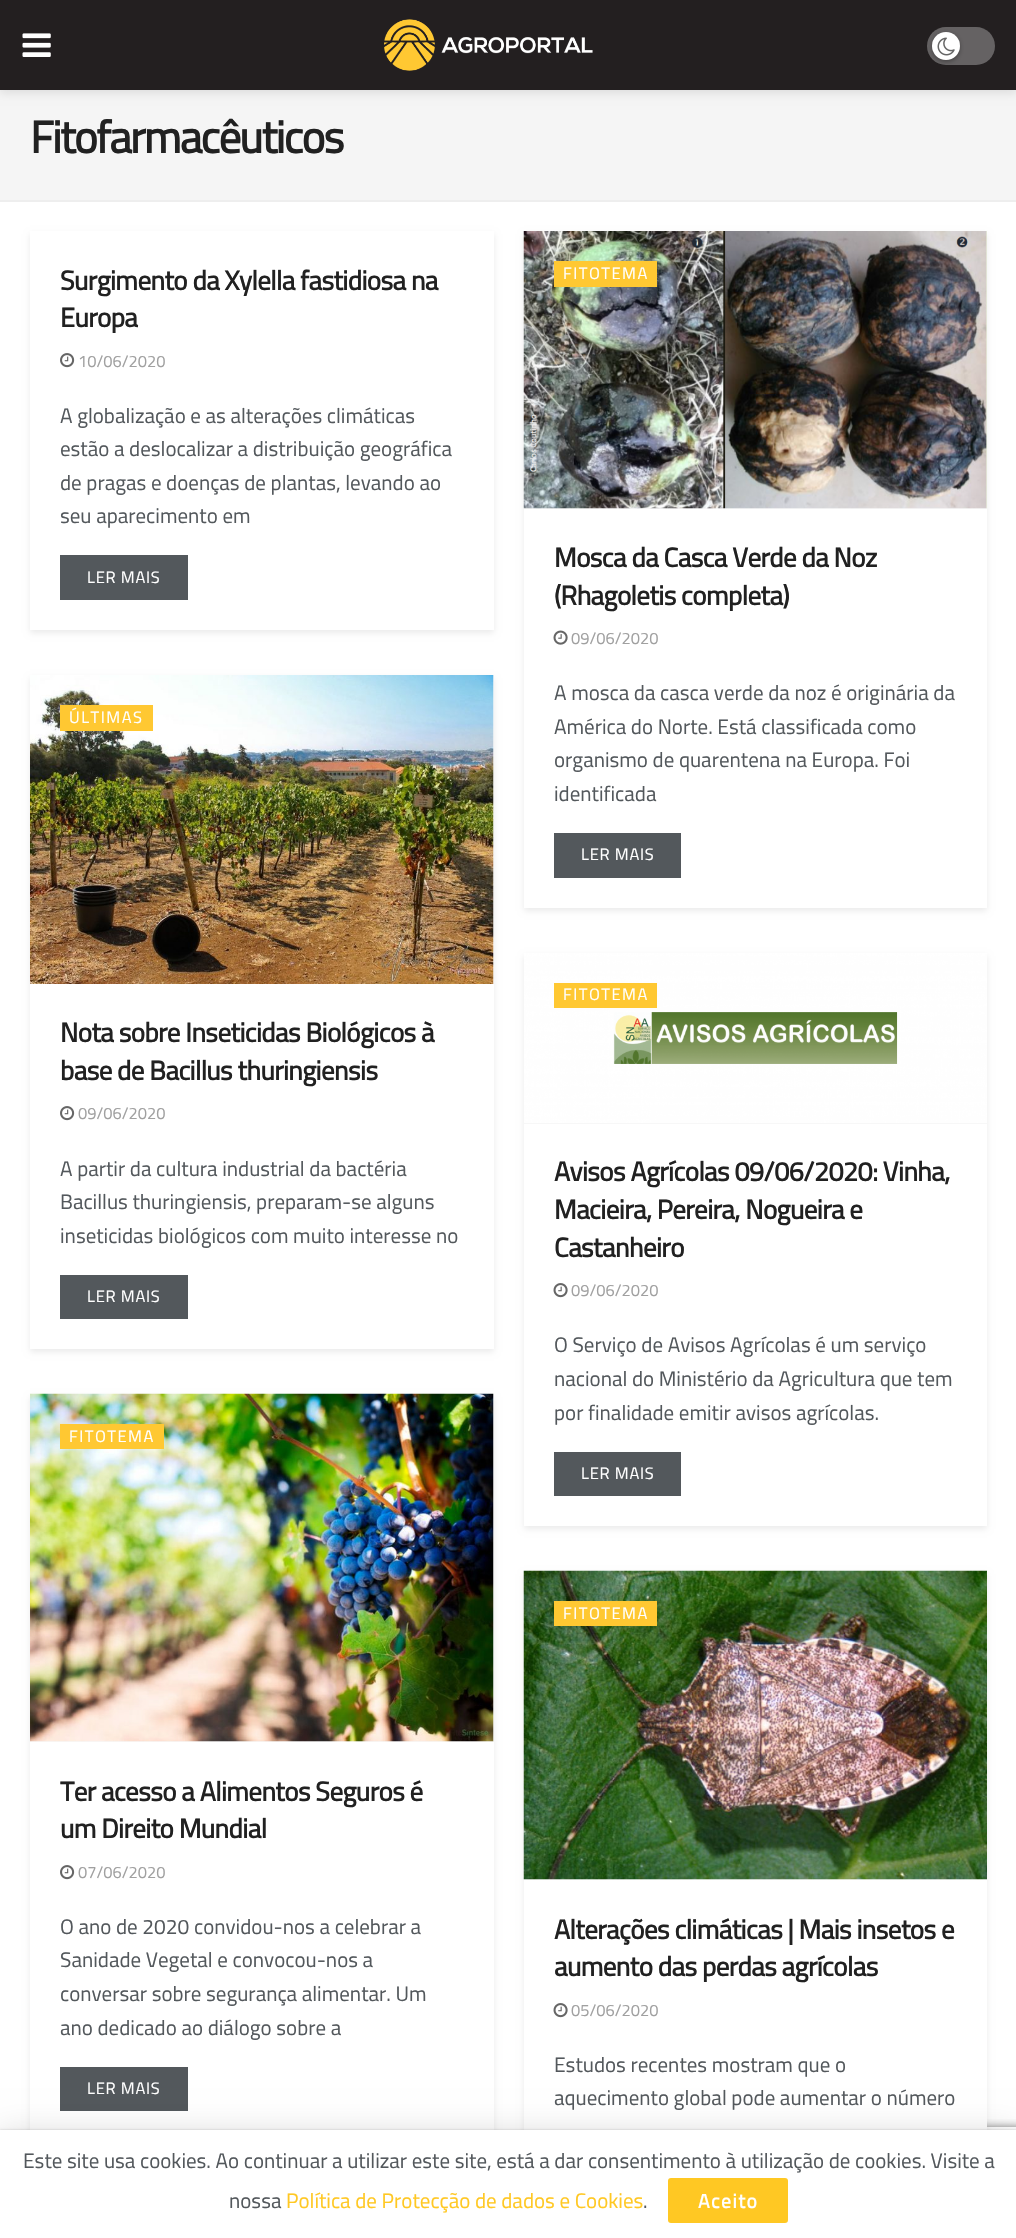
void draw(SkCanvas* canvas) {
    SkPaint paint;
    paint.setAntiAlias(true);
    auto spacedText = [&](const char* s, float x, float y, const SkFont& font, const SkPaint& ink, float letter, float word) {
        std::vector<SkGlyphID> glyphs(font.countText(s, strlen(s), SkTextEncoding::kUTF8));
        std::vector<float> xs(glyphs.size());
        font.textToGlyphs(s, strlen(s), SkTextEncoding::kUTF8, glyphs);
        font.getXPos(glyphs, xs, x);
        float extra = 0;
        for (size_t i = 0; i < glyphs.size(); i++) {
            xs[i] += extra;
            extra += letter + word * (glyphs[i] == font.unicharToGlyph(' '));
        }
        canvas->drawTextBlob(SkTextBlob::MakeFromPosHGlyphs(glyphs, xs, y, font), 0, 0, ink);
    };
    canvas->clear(0xFFFFFFFF);
    paint.setColor(0xFFF5F5F5);
    canvas->drawRect(SkRect::MakeXYWH(0, 90, 1016, 110), paint);
    paint.setColor(0x1A000000);
    paint.setMaskFilter(SkMaskFilter::MakeBlur(kNormal_SkBlurStyle, 4.5f));
    canvas->drawRect(SkRect::MakeXYWH(0, 3, 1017, 90), paint);
    paint.setMaskFilter(nullptr);
    paint.setColor(0xFF231F20);
    canvas->drawRect(SkRect::MakeXYWH(0, 0, 1016, 90), paint);
    canvas->drawImageRect(SkImages::DeferredFromEncodedData(SkData::MakeFromFileName("img1.png")), SkRect::MakeXYWH(22, 33, 29, 24), SkSamplingOptions());
    canvas->drawImageRect(SkImages::DeferredFromEncodedData(SkData::MakeFromFileName("img2.png")), SkRect::MakeXYWH(384, 19, 209, 52), SkSamplingOptions());
    paint.setColor(0xFF656263);
    canvas->drawRoundRect(SkRect::MakeXYWH(927, 27, 68, 38), 19, 19, paint);
    paint.setColor(0x4D000000);
    paint.setMaskFilter(SkMaskFilter::MakeBlur(kNormal_SkBlurStyle, 2));
    canvas->drawRoundRect(SkRect::MakeXYWH(932, 33, 28, 29), 14, 14, paint);
    paint.setMaskFilter(nullptr);
    paint.setColor(0xFFFFFFFF);
    canvas->drawCircle(946, 46, 14, paint);
    canvas->drawImageRect(SkImages::DeferredFromEncodedData(SkData::MakeFromFileName("img3.png")), SkRect::MakeXYWH(937, 37, 18, 19), SkSamplingOptions());
    paint.setColor(0xFFEEEEEE);
    canvas->drawRect(SkRect::MakeXYWH(0, 200, 1016, 2), paint);
    SkFont font1(fontMgr->matchFamilyStyle("Titillium Web", SkFontStyle::Bold()), 45);
    font1.setSubpixel(true);
    paint.setColor(0xFF212121);
    spacedText("Fitofarmacêuticos", 30, 153, font1, paint, -1.75f, 0);
    paint.setColor(0x14000000);
    paint.setMaskFilter(SkMaskFilter::MakeBlur(kNormal_SkBlurStyle, 3));
    canvas->drawRect(SkRect::MakeXYWH(30, 234, 464, 399), paint);
    paint.setMaskFilter(nullptr);
    paint.setColor(0xFFFFFFFF);
    canvas->drawRect(SkRect::MakeXYWH(30, 231, 464, 399), paint);
    SkFont font2(fontMgr->matchFamilyStyle("Titillium Web", SkFontStyle::Bold()), 27);
    font2.setSubpixel(true);
    paint.setColor(0xFF212121);
    spacedText("Surgimento da Xylella fastidiosa na", 60, 290, font2, paint, -0.55f, 0);
    spacedText("Europa", 60, 327, font2, paint, -0.55f, 0);
    canvas->drawImageRect(SkImages::DeferredFromEncodedData(SkData::MakeFromFileName("img4.png")), SkRect::MakeXYWH(60, 353, 15, 15), SkSamplingOptions());
    SkFont font3(fontMgr->matchFamilyStyle("Titillium Web", SkFontStyle::Normal()), 16.5f);
    font3.setSubpixel(true);
    paint.setColor(0xFFA0A0A0);
    canvas->drawString("10/06/2020", 78, 367, font3, paint);
    SkFont font4(fontMgr->matchFamilyStyle("Titillium Web", SkFontStyle::Normal()), 21);
    font4.setSubpixel(true);
    paint.setColor(0xFF53585C);
    canvas->drawString("A globalização e as alterações climáticas", 60, 423, font4, paint);
    canvas->drawString("estão a deslocalizar a distribuição geográfica", 60, 456, font4, paint);
    canvas->drawString("de pragas e doenças de plantas, levando ao", 60, 490, font4, paint);
    canvas->drawString("seu aparecimento em", 60, 523, font4, paint);
    canvas->drawRect(SkRect::MakeXYWH(60, 555, 128, 45), paint);
    paint.setColor(0xFFFFFFFF);
    spacedText("LER MAIS", 87, 583, font3, paint, 0.75f, 0);
    paint.setColor(0x14000000);
    paint.setMaskFilter(SkMaskFilter::MakeBlur(kNormal_SkBlurStyle, 3));
    canvas->drawRect(SkRect::MakeXYWH(524, 234, 463, 677), paint);
    paint.setMaskFilter(nullptr);
    paint.setColor(0xFFFFFFFF);
    canvas->drawRect(SkRect::MakeXYWH(524, 509, 463, 399), paint);
    paint.setColor(0xFFF7F7F7);
    canvas->drawRect(SkRect::MakeXYWH(524, 508, 463, 1), paint);
    canvas->drawImageRect(SkImages::DeferredFromEncodedData(SkData::MakeFromFileName("img5.png")), SkRect::MakeXYWH(523, 231, 464, 278), SkSamplingOptions());
    paint.setColor(0xFFFFC832);
    canvas->drawRect(SkRect::MakeXYWH(554, 261, 103, 26), paint);
    paint.setColor(0xFFFFFFFF);
    spacedText("FITOTEMA", 563, 279, font3, paint, 1.5f, 0);
    paint.setColor(0xFF212121);
    spacedText("Mosca da Casca Verde da Noz", 554, 567, font2, paint, -0.55f, 0);
    spacedText("(Rhagoletis completa)", 554, 605, font2, paint, -0.55f, 0);
    canvas->drawImageRect(SkImages::DeferredFromEncodedData(SkData::MakeFromFileName("img6.png")), SkRect::MakeXYWH(553, 630, 15, 15), SkSamplingOptions());
    paint.setColor(0xFFA0A0A0);
    canvas->drawString("09/06/2020", 571, 644, font3, paint);
    paint.setColor(0xFF53585C);
    canvas->drawString("A mosca da casca verde da noz é originária da", 554, 700, font4, paint);
    canvas->drawString("América do Norte. Está classificada como", 554, 734, font4, paint);
    canvas->drawString("organismo de quarentena na Europa. Foi", 554, 767, font4, paint);
    canvas->drawString("identificada", 554, 801, font4, paint);
    canvas->drawRect(SkRect::MakeXYWH(554, 833, 127, 45), paint);
    paint.setColor(0xFFFFFFFF);
    spacedText("LER MAIS", 581, 860, font3, paint, 0.75f, 0);
    paint.setColor(0x14000000);
    paint.setMaskFilter(SkMaskFilter::MakeBlur(kNormal_SkBlurStyle, 3));
    canvas->drawRect(SkRect::MakeXYWH(30, 678, 464, 674), paint);
    paint.setMaskFilter(nullptr);
    paint.setColor(0xFFFFFFFF);
    canvas->drawRect(SkRect::MakeXYWH(30, 984, 464, 365), paint);
    paint.setColor(0xFFF7F7F7);
    canvas->drawRect(SkRect::MakeXYWH(493, 675, 1, 309), paint);
    canvas->drawImageRect(SkImages::DeferredFromEncodedData(SkData::MakeFromFileName("img7.png")), SkRect::MakeXYWH(30, 675, 464, 309), SkSamplingOptions());
    paint.setColor(0xFFFFC832);
    canvas->drawRect(SkRect::MakeXYWH(60, 705, 93, 26), paint);
    paint.setColor(0xFFFFFFFF);
    spacedText("ÚLTIMAS", 69, 723, font3, paint, 1.5f, 0);
    paint.setColor(0xFF212121);
    spacedText("Nota sobre Inseticidas Biológicos à", 60, 1042, font2, paint, -0.55f, 0);
    spacedText("base de Bacillus thuringiensis", 60, 1080, font2, paint, -0.55f, 0);
    canvas->drawImageRect(SkImages::DeferredFromEncodedData(SkData::MakeFromFileName("img4.png")), SkRect::MakeXYWH(60, 1106, 15, 15), SkSamplingOptions());
    paint.setColor(0xFFA0A0A0);
    canvas->drawString("09/06/2020", 78, 1119, font3, paint);
    paint.setColor(0xFF53585C);
    canvas->drawString("A partir da cultura industrial da bactéria", 60, 1176, font4, paint);
    canvas->drawString("Bacillus thuringiensis, preparam-se alguns", 60, 1209, font4, paint);
    canvas->drawString("inseticidas biológicos com muito interesse no", 60, 1243, font4, paint);
    canvas->drawRect(SkRect::MakeXYWH(60, 1275, 128, 44), paint);
    paint.setColor(0xFFFFFFFF);
    spacedText("LER MAIS", 87, 1302, font3, paint, 0.75f, 0);
    paint.setColor(0x14000000);
    paint.setMaskFilter(SkMaskFilter::MakeBlur(kNormal_SkBlurStyle, 3));
    canvas->drawRect(SkRect::MakeXYWH(524, 956, 463, 573), paint);
    paint.setMaskFilter(nullptr);
    paint.setColor(0xFFFFFFFF);
    canvas->drawRect(SkRect::MakeXYWH(524, 1124, 463, 402), paint);
    paint.setColor(0xFFF7F7F7);
    canvas->drawRect(SkRect::MakeXYWH(524, 1123, 463, 1), paint);
    canvas->drawImageRect(SkImages::DeferredFromEncodedData(SkData::MakeFromFileName("img8.png")), SkRect::MakeXYWH(524, 953, 463, 170), SkSamplingOptions());
    paint.setColor(0xFFFFC832);
    canvas->drawRect(SkRect::MakeXYWH(554, 983, 103, 25), paint);
    paint.setColor(0xFFFFFFFF);
    spacedText("FITOTEMA", 563, 1000, font3, paint, 1.5f, 0);
    paint.setColor(0xFF212121);
    spacedText("Avisos Agrícolas 09/06/2020: Vinha,", 554, 1181, font2, paint, -0.55f, 0);
    spacedText("Macieira, Pereira, Nogueira e", 554, 1219, font2, paint, -0.55f, 0);
    spacedText("Castanheiro", 554, 1257, font2, paint, -0.55f, 0);
    canvas->drawImageRect(SkImages::DeferredFromEncodedData(SkData::MakeFromFileName("img9.png")), SkRect::MakeXYWH(553, 1283, 15, 15), SkSamplingOptions());
    paint.setColor(0xFFA0A0A0);
    canvas->drawString("09/06/2020", 571, 1296, font3, paint);
    paint.setColor(0xFF53585C);
    canvas->drawString("O Serviço de Avisos Agrícolas é um serviço", 554, 1352, font4, paint);
    canvas->drawString("nacional do Ministério da Agricultura que tem", 554, 1386, font4, paint);
    canvas->drawString("por finalidade emitir avisos agrícolas.", 554, 1420, font4, paint);
    canvas->drawRect(SkRect::MakeXYWH(554, 1452, 127, 44), paint);
    paint.setColor(0xFFFFFFFF);
    spacedText("LER MAIS", 581, 1479, font3, paint, 0.75f, 0);
    paint.setColor(0x14000000);
    paint.setMaskFilter(SkMaskFilter::MakeBlur(kNormal_SkBlurStyle, 3));
    canvas->drawRect(SkRect::MakeXYWH(30, 1397, 464, 747), paint);
    paint.setMaskFilter(nullptr);
    paint.setColor(0xFFFFFFFF);
    canvas->drawRect(SkRect::MakeXYWH(30, 1742, 464, 388), paint);
    paint.setColor(0xFFF7F7F7);
    canvas->drawRect(SkRect::MakeXYWH(30, 1394, 464, 348), paint);
    canvas->drawImageRect(SkImages::DeferredFromEncodedData(SkData::MakeFromFileName("img10.png")), SkRect::MakeXYWH(30, 1393, 464, 349), SkSamplingOptions());
    paint.setColor(0xFFFFC832);
    canvas->drawRect(SkRect::MakeXYWH(60, 1424, 104, 25), paint);
    paint.setColor(0xFFFFFFFF);
    spacedText("FITOTEMA", 69, 1442, font3, paint, 1.5f, 0);
    paint.setColor(0xFF212121);
    spacedText("Ter acesso a Alimentos Seguros é", 60, 1801, font2, paint, -0.55f, 0);
    spacedText("um Direito Mundial", 60, 1838, font2, paint, -0.55f, 0);
    canvas->drawImageRect(SkImages::DeferredFromEncodedData(SkData::MakeFromFileName("img4.png")), SkRect::MakeXYWH(60, 1865, 15, 15), SkSamplingOptions());
    paint.setColor(0xFFA0A0A0);
    canvas->drawString("07/06/2020", 78, 1878, font3, paint);
    paint.setColor(0xFF53585C);
    canvas->drawString("O ano de 2020 convidou-nos a celebrar a", 60, 1934, font4, paint);
    canvas->drawString("Sanidade Vegetal e convocou-nos a", 60, 1967, font4, paint);
    canvas->drawString("conversar sobre segurança alimentar. Um", 60, 2001, font4, paint);
    canvas->drawString("ano dedicado ao diálogo sobre a", 60, 2035, font4, paint);
    canvas->drawRect(SkRect::MakeXYWH(60, 2067, 128, 44), paint);
    paint.setColor(0xFFFFFFFF);
    spacedText("LER MAIS", 87, 2094, font3, paint, 0.75f, 0);
    paint.setColor(0x14000000);
    paint.setMaskFilter(SkMaskFilter::MakeBlur(kNormal_SkBlurStyle, 3));
    canvas->drawRect(SkRect::MakeXYWH(524, 1574, 463, 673), paint);
    paint.setMaskFilter(nullptr);
    canvas->save();
    canvas->clipRect(SkRect::MakeXYWH(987, 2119, 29, 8));
    paint.setColor(0xFF808080);
    paint.setMaskFilter(SkMaskFilter::MakeBlur(kNormal_SkBlurStyle, 4));
    canvas->drawRoundRect(SkRect::MakeXYWH(912, 2127, 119, 90), 3, 3, paint);
    paint.setMaskFilter(nullptr);
    canvas->restore();
    paint.setColor(0xFFFFFFFF);
    canvas->drawRect(SkRect::MakeXYWH(524, 1880, 463, 250), paint);
    paint.setColor(0xFFF7F7F7);
    canvas->drawRect(SkRect::MakeXYWH(524, 1879, 463, 1), paint);
    canvas->drawImageRect(SkImages::DeferredFromEncodedData(SkData::MakeFromFileName("img11.png")), SkRect::MakeXYWH(523, 1570, 464, 310), SkSamplingOptions());
    paint.setColor(0xFFFFC832);
    canvas->drawRect(SkRect::MakeXYWH(554, 1601, 103, 25), paint);
    paint.setColor(0xFFFFFFFF);
    spacedText("FITOTEMA", 563, 1619, font3, paint, 1.5f, 0);
    paint.setColor(0xFF212121);
    spacedText("Alterações climáticas | Mais insetos e", 554, 1939, font2, paint, -0.55f, 0);
    spacedText("aumento das perdas agrícolas", 554, 1976, font2, paint, -0.55f, 0);
    canvas->drawImageRect(SkImages::DeferredFromEncodedData(SkData::MakeFromFileName("img9.png")), SkRect::MakeXYWH(553, 2003, 15, 15), SkSamplingOptions());
    paint.setColor(0xFFA0A0A0);
    canvas->drawString("05/06/2020", 571, 2016, font3, paint);
    paint.setColor(0xFF53585C);
    canvas->drawString("Estudos recentes mostram que o", 554, 2072, font4, paint);
    canvas->drawString("aquecimento global pode aumentar o número", 554, 2105, font4, paint);
    paint.setColor(0x26000000);
    paint.setMaskFilter(SkMaskFilter::MakeBlur(kNormal_SkBlurStyle, 15));
    canvas->drawRect(SkRect::MakeXYWH(0, 2133, 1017, 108), paint);
    paint.setMaskFilter(nullptr);
    paint.setColor(0x33000000);
    paint.setMaskFilter(SkMaskFilter::MakeBlur(kNormal_SkBlurStyle, 1));
    canvas->drawRect(SkRect::MakeXYWH(0, 2130, 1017, 108), paint);
    paint.setMaskFilter(nullptr);
    paint.setColor(0xFFFFFFFF);
    canvas->drawRect(SkRect::MakeXYWH(0, 2130, 1016, 108), paint);
    paint.setColor(0xFF53585C);
    canvas->drawString("Este site usa cookies. Ao continuar a utilizar este site, está a dar consentimento à utilização de cookies. Visite a", 23, 2168, font4, paint);
    canvas->drawString("nossa", 229, 2208, font4, paint);
    paint.setColor(0xFFFFC823);
    canvas->drawString("Política de Protecção de dados e Cookies", 286, 2208, font4, paint);
    paint.setColor(0xFF53585C);
    canvas->drawString(".", 643, 2208, font4, paint);
    paint.setColor(0xFFFFC823);
    canvas->drawRoundRect(SkRect::MakeXYWH(668, 2178, 120, 45), 3, 3, paint);
    SkFont font5(fontMgr->matchFamilyStyle("Titillium Web", SkFontStyle::Bold()), 19.5f);
    font5.setSubpixel(true);
    paint.setColor(0xFFFFFFFF);
    spacedText("Aceito", 698, 2208, font5, paint, 1.5f, 0);
}
